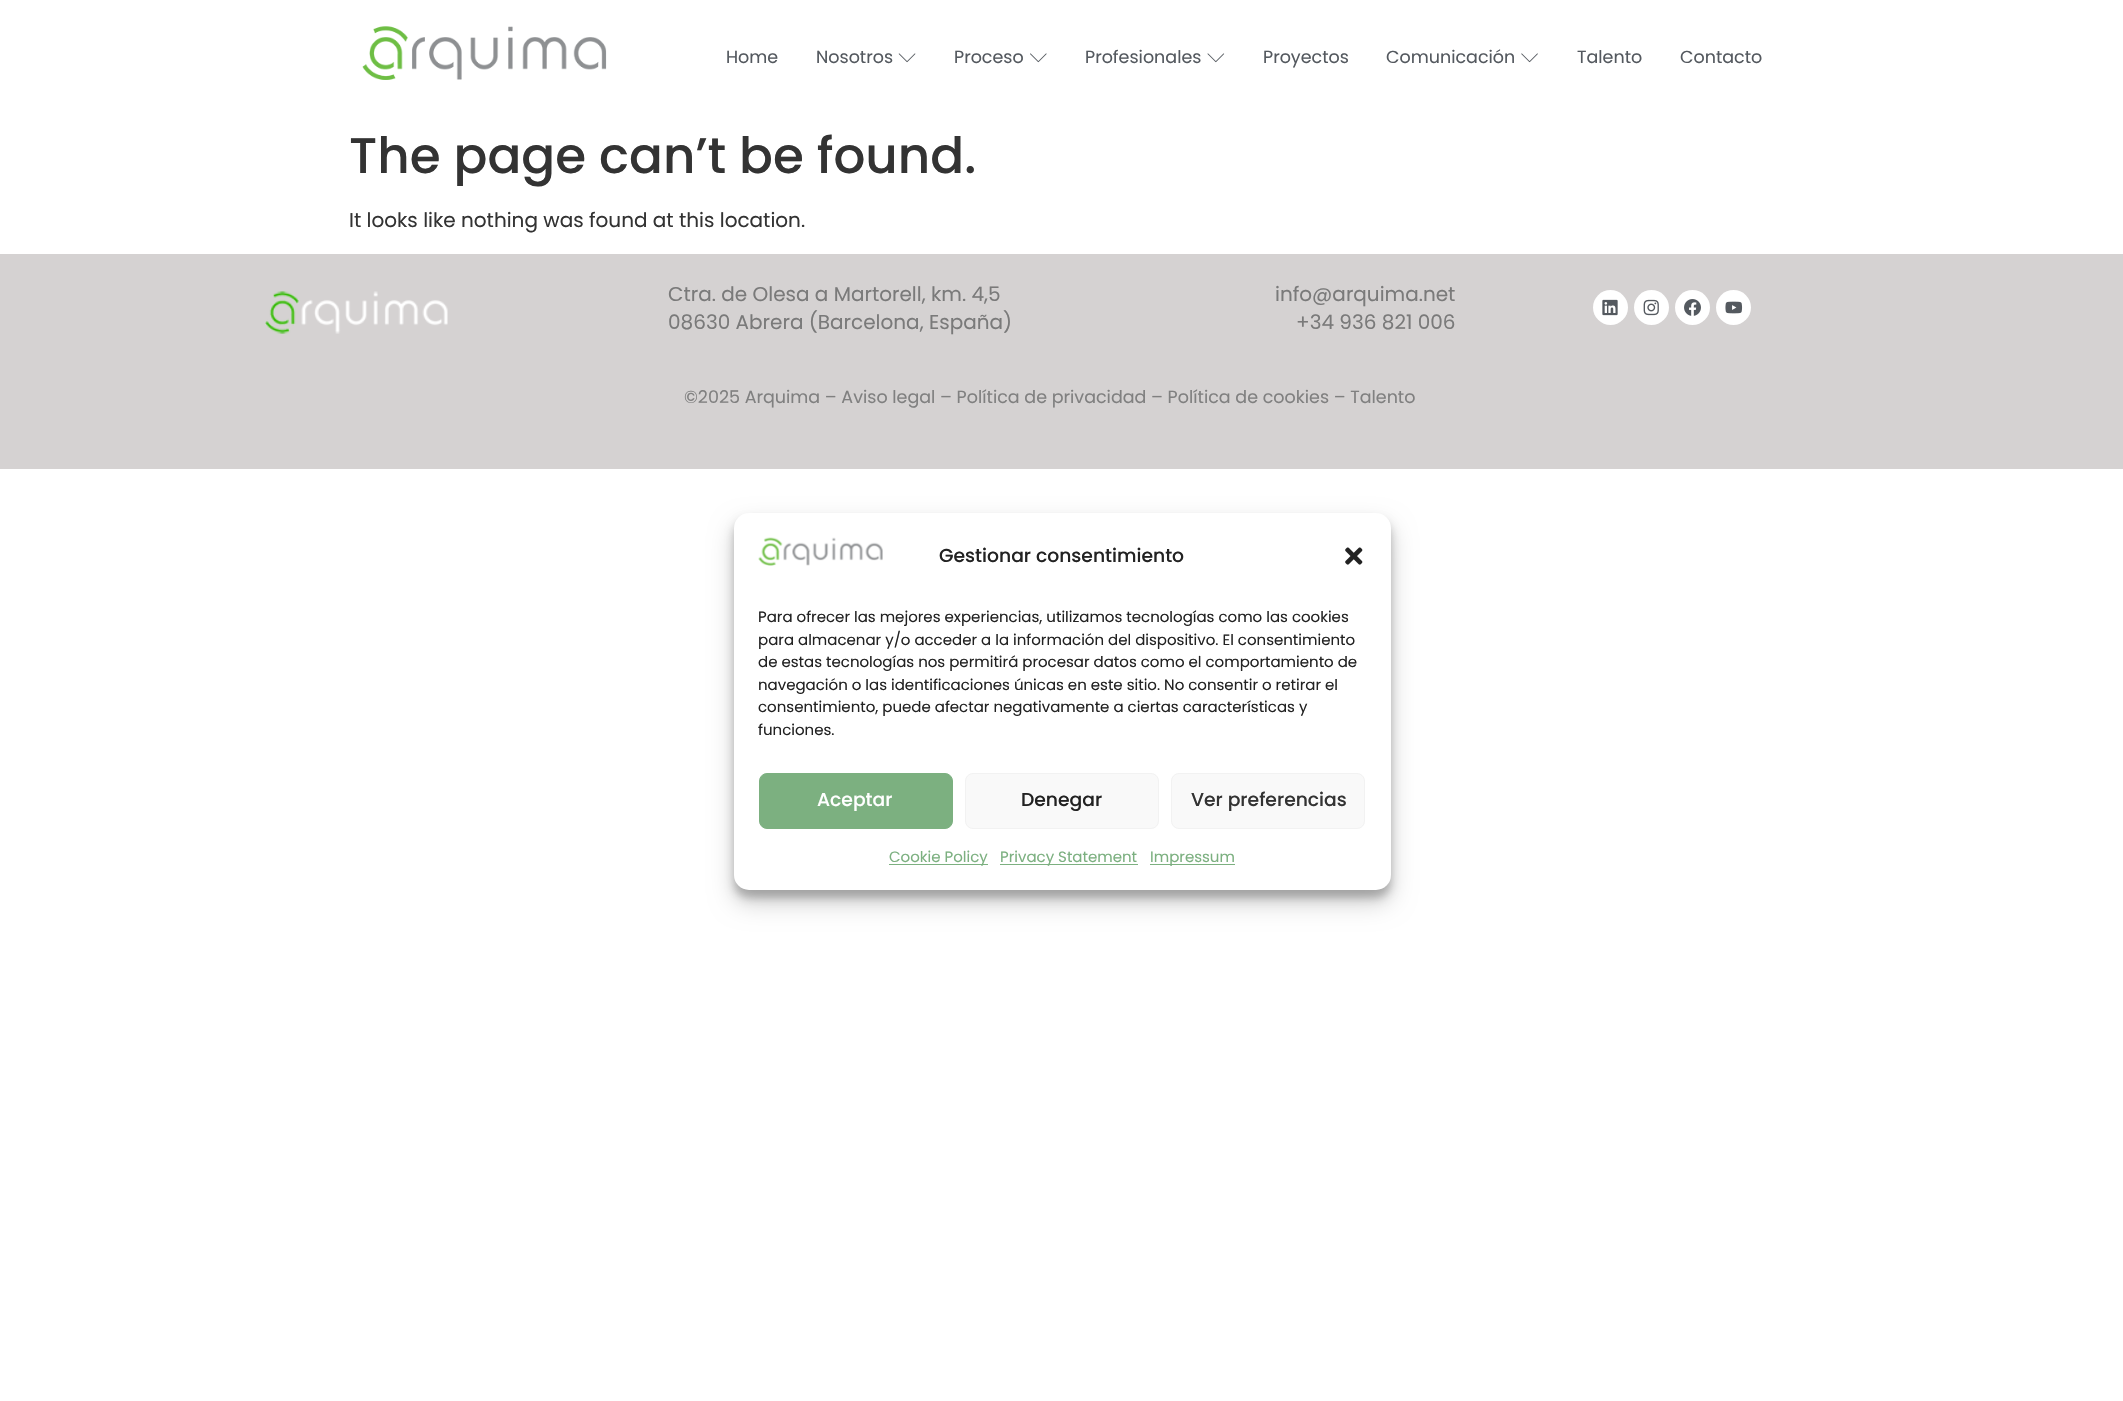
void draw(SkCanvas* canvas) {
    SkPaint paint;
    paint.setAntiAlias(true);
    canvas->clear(0xFFFFFFFF);
    canvas->drawImageRect(SkImages::DeferredFromEncodedData(SkData::MakeFromFileName("img1.png")), SkRect::MakeXYWH(362, 26, 245, 54), SkSamplingOptions());
    SkFont font1(fontMgr->matchFamilyStyle("Poppins", SkFontStyle::Normal()), 17.5f);
    font1.setSubpixel(true);
    paint.setColor(0xFF54595F);
    canvas->drawString("Home", 726, 63, font1, paint);
    canvas->drawString("Nosotros", 816, 63, font1, paint);
    canvas->drawImageRect(SkImages::DeferredFromEncodedData(SkData::MakeFromFileName("img2.png")), SkRect::MakeXYWH(898, 53, 18, 10), SkSamplingOptions());
    canvas->drawString("Proceso", 954, 63, font1, paint);
    canvas->drawImageRect(SkImages::DeferredFromEncodedData(SkData::MakeFromFileName("img3.png")), SkRect::MakeXYWH(1030, 53, 17, 10), SkSamplingOptions());
    canvas->drawString("Profesionales", 1085, 63, font1, paint);
    canvas->drawImageRect(SkImages::DeferredFromEncodedData(SkData::MakeFromFileName("img4.png")), SkRect::MakeXYWH(1207, 53, 18, 10), SkSamplingOptions());
    canvas->drawString("Proyectos", 1263, 63, font1, paint);
    canvas->drawString("Comunicación", 1386, 63, font1, paint);
    canvas->drawImageRect(SkImages::DeferredFromEncodedData(SkData::MakeFromFileName("img5.png")), SkRect::MakeXYWH(1521, 53, 17, 10), SkSamplingOptions());
    canvas->drawString("Talento", 1577, 63, font1, paint);
    canvas->drawString("Contacto", 1680, 63, font1, paint);
    SkFont font2(fontMgr->matchFamilyStyle("Poppins", SkFontStyle(500, SkFontStyle::kNormal_Width, SkFontStyle::kUpright_Slant)), 50);
    font2.setSubpixel(true);
    paint.setColor(0xFF333333);
    canvas->drawString("The page can’t be found.", 349, 173, font2, paint);
    SkFont font3(fontMgr->matchFamilyStyle("Poppins", SkFontStyle::Normal()), 20);
    font3.setSubpixel(true);
    canvas->drawString("It looks like nothing was found at this location.", 349, 227, font3, paint);
    paint.setColor(0xFFD5D2D2);
    canvas->drawRect(SkRect::MakeXYWH(0, 254, 2123, 215), paint);
    canvas->drawImageRect(SkImages::DeferredFromEncodedData(SkData::MakeFromFileName("img6.png")), SkRect::MakeXYWH(265, 291, 183, 43), SkSamplingOptions());
    paint.setColor(0xFF7A7A7A);
    canvas->drawString("Ctra. de Olesa a Martorell, km. 4,5", 668, 301, font3, paint);
    canvas->drawString("08630 Abrera (Barcelona, España)", 668, 329, font3, paint);
    canvas->drawString("info@arquima.net", 1275, 301, font3, paint);
    canvas->drawString("+34 936 821 006", 1296, 329, font3, paint);
    paint.setColor(0xFFFFFFFF);
    canvas->drawCircle(1610.5f, 307.5f, 17.5f, paint);
    canvas->drawImageRect(SkImages::DeferredFromEncodedData(SkData::MakeFromFileName("img7.png")), SkRect::MakeXYWH(1602, 299, 16, 17), SkSamplingOptions());
    canvas->drawCircle(1651.5f, 307.5f, 17.5f, paint);
    canvas->drawImageRect(SkImages::DeferredFromEncodedData(SkData::MakeFromFileName("img8.png")), SkRect::MakeXYWH(1643, 299, 16, 17), SkSamplingOptions());
    canvas->drawCircle(1692.5f, 307.5f, 17.5f, paint);
    canvas->drawImageRect(SkImages::DeferredFromEncodedData(SkData::MakeFromFileName("img9.png")), SkRect::MakeXYWH(1684, 299, 17, 17), SkSamplingOptions());
    canvas->drawCircle(1733.5f, 307.5f, 17.5f, paint);
    canvas->drawImageRect(SkImages::DeferredFromEncodedData(SkData::MakeFromFileName("img10.png")), SkRect::MakeXYWH(1725, 301, 18, 13), SkSamplingOptions());
    paint.setColor(0xFF808080);
    canvas->drawString("©2025 Arquima – Aviso legal – Política de privacidad – Política de cookies – Talento", 684, 403, font1, paint);
    paint.setColor(0x3B000000);
    paint.setMaskFilter(SkMaskFilter::MakeBlur(kNormal_SkBlurStyle, 4));
    canvas->drawRoundRect(SkRect::MakeXYWH(734, 520, 657, 378), 15, 15, paint);
    paint.setMaskFilter(nullptr);
    paint.setColor(0x30000000);
    paint.setMaskFilter(SkMaskFilter::MakeBlur(kNormal_SkBlurStyle, 12.5f));
    canvas->drawRoundRect(SkRect::MakeXYWH(734, 525, 657, 378), 15, 15, paint);
    paint.setMaskFilter(nullptr);
    paint.setColor(0xFFFFFFFF);
    canvas->drawRoundRect(SkRect::MakeXYWH(734, 513, 657, 377), 15, 15, paint);
    canvas->drawImageRect(SkImages::DeferredFromEncodedData(SkData::MakeFromFileName("img11.png")), SkRect::MakeXYWH(758, 537, 125, 29), SkSamplingOptions());
    SkFont font4(fontMgr->matchFamilyStyle("Poppins", SkFontStyle(500, SkFontStyle::kNormal_Width, SkFontStyle::kUpright_Slant)), 18.75f);
    font4.setSubpixel(true);
    paint.setColor(0xFF222222);
    canvas->drawString("Gestionar consentimiento", 939, 562, font4, paint);
    canvas->drawImageRect(SkImages::DeferredFromEncodedData(SkData::MakeFromFileName("img12.png")), SkRect::MakeXYWH(1345, 547, 18, 18), SkSamplingOptions());
    SkFont font5(fontMgr->matchFamilyStyle("Poppins", SkFontStyle::Normal()), 15);
    font5.setSubpixel(true);
    canvas->drawString("Para ofrecer las mejores experiencias, utilizamos tecnologías como las cookies", 758, 622, font5, paint);
    canvas->drawString("para almacenar y/o acceder a la información del dispositivo. El consentimiento", 758, 645, font5, paint);
    canvas->drawString("de estas tecnologías nos permitirá procesar datos como el comportamiento de", 758, 667, font5, paint);
    canvas->drawString("navegación o las identificaciones únicas en este sitio. No consentir o retirar el", 758, 690, font5, paint);
    canvas->drawString("consentimiento, puede afectar negativamente a ciertas características y", 758, 712, font5, paint);
    canvas->drawString("funciones.", 758, 735, font5, paint);
    paint.setColor(0xFF7CB080);
    canvas->drawRoundRect(SkRect::MakeXYWH(759.5f, 773.5f, 193, 55), 7.5f, 7.5f, paint);
    paint.setStyle(SkPaint::kStroke_Style);
    paint.setStrokeWidth(1);
    canvas->drawRoundRect(SkRect::MakeXYWH(759.5f, 773.5f, 193, 55), 7.5f, 7.5f, paint);
    paint.setStyle(SkPaint::kFill_Style);
    paint.setColor(0xFFFFFFFF);
    canvas->drawString("Aceptar", 817, 806, font4, paint);
    paint.setColor(0xFFF9F9F9);
    canvas->drawRoundRect(SkRect::MakeXYWH(965.5f, 773.5f, 193, 55), 7.5f, 7.5f, paint);
    paint.setStyle(SkPaint::kStroke_Style);
    paint.setColor(0xFFF2F2F2);
    canvas->drawRoundRect(SkRect::MakeXYWH(965.5f, 773.5f, 193, 55), 7.5f, 7.5f, paint);
    paint.setStyle(SkPaint::kFill_Style);
    paint.setColor(0xFF222222);
    canvas->drawString("Denegar", 1021, 806, font4, paint);
    paint.setColor(0xFFF9F9F9);
    canvas->drawRoundRect(SkRect::MakeXYWH(1171.5f, 773.5f, 193, 55), 7.5f, 7.5f, paint);
    paint.setStyle(SkPaint::kStroke_Style);
    paint.setColor(0xFFF2F2F2);
    canvas->drawRoundRect(SkRect::MakeXYWH(1171.5f, 773.5f, 193, 55), 7.5f, 7.5f, paint);
    paint.setStyle(SkPaint::kFill_Style);
    paint.setColor(0xFF333333);
    canvas->drawString("Ver preferencias", 1191, 806, font4, paint);
    paint.setColor(0xFF7CB080);
    canvas->drawRect(SkRect::MakeXYWH(889, 864, 99, 1), paint);
    canvas->drawString("Cookie Policy", 889, 862, font5, paint);
    canvas->drawRect(SkRect::MakeXYWH(1000, 864, 138, 1), paint);
    canvas->drawString("Privacy Statement", 1000, 862, font5, paint);
    canvas->drawRect(SkRect::MakeXYWH(1150, 864, 85, 1), paint);
    canvas->drawString("Impressum", 1150, 862, font5, paint);
}
